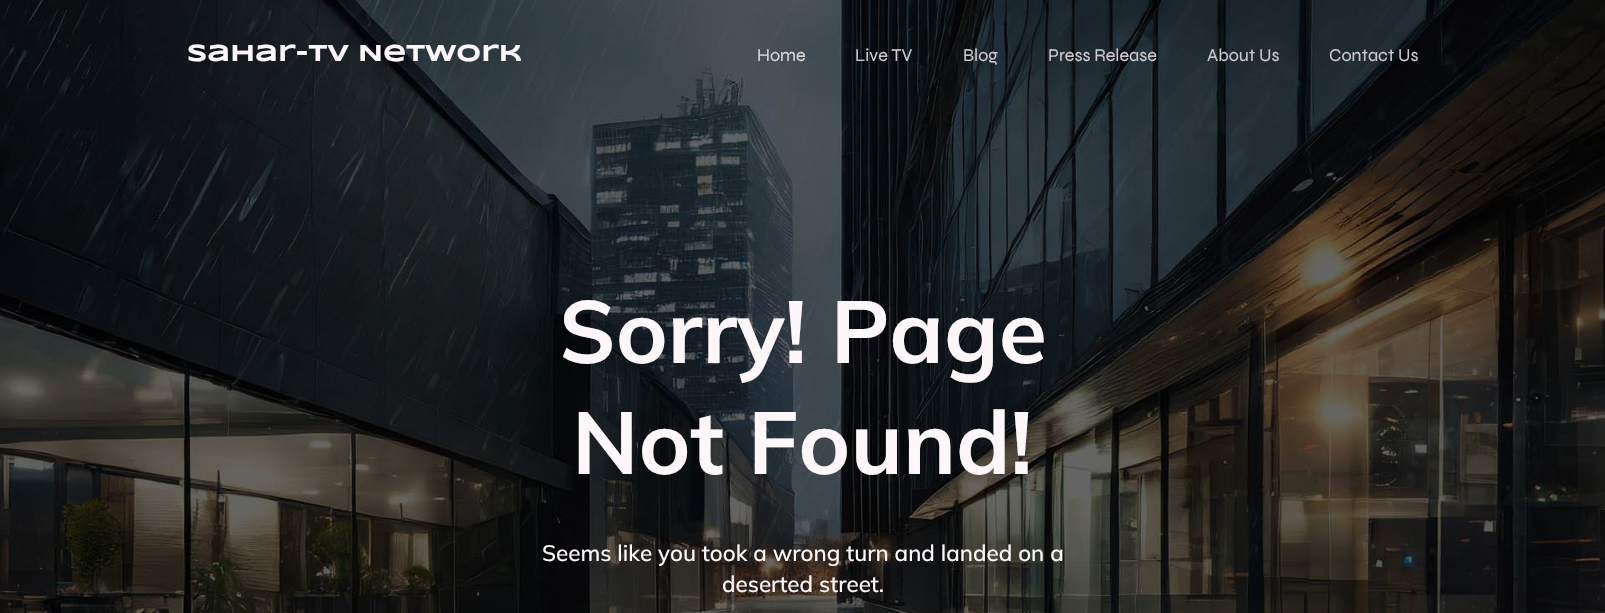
void draw(SkCanvas* canvas) {
    SkPaint paint;
    paint.setAntiAlias(true);
    canvas->clear(0xFFFFFFFF);
    canvas->drawImageRect(SkImages::DeferredFromEncodedData(SkData::MakeFromFileName("img1.png")), SkRect::MakeXYWH(0, 0, 1605, 613), SkSamplingOptions());
    SkFont font1(fontMgr->matchFamilyStyle("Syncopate", SkFontStyle::Bold()), 24);
    font1.setSubpixel(true);
    paint.setColor(0xFFFDF7FA);
    canvas->drawString("Sahar-TV Network", 187, 61, font1, paint);
    SkFont font2(fontMgr->matchFamilyStyle("Syne", SkFontStyle::Normal()), 18);
    font2.setSubpixel(true);
    paint.setColor(0xFFD8D5D9);
    canvas->drawString("Home", 757, 61, font2, paint);
    paint.setColor(0xFFCDC9CC);
    canvas->drawString("Live TV", 855, 61, font2, paint);
    canvas->drawString("Blog", 963, 61, font2, paint);
    canvas->drawString("Press Release", 1048, 61, font2, paint);
    canvas->drawString("About Us", 1207, 61, font2, paint);
    canvas->drawString("Contact Us", 1329, 61, font2, paint);
    SkFont font3(fontMgr->matchFamilyStyle("Mulish", SkFontStyle::Bold()), 88);
    font3.setSubpixel(true);
    paint.setColor(0xFFFDF7FA);
    canvas->drawString("Sorry! Page", 559, 363, font3, paint);
    canvas->drawString("Not Found!", 572, 474, font3, paint);
    SkFont font4(fontMgr->matchFamilyStyle("Mulish", SkFontStyle(500, SkFontStyle::kNormal_Width, SkFontStyle::kUpright_Slant)), 22.4f);
    font4.setSubpixel(true);
    canvas->drawString("Seems like you took a wrong turn and landed on a", 542, 561, font4, paint);
    canvas->drawString("deserted street.", 722, 592, font4, paint);
}
